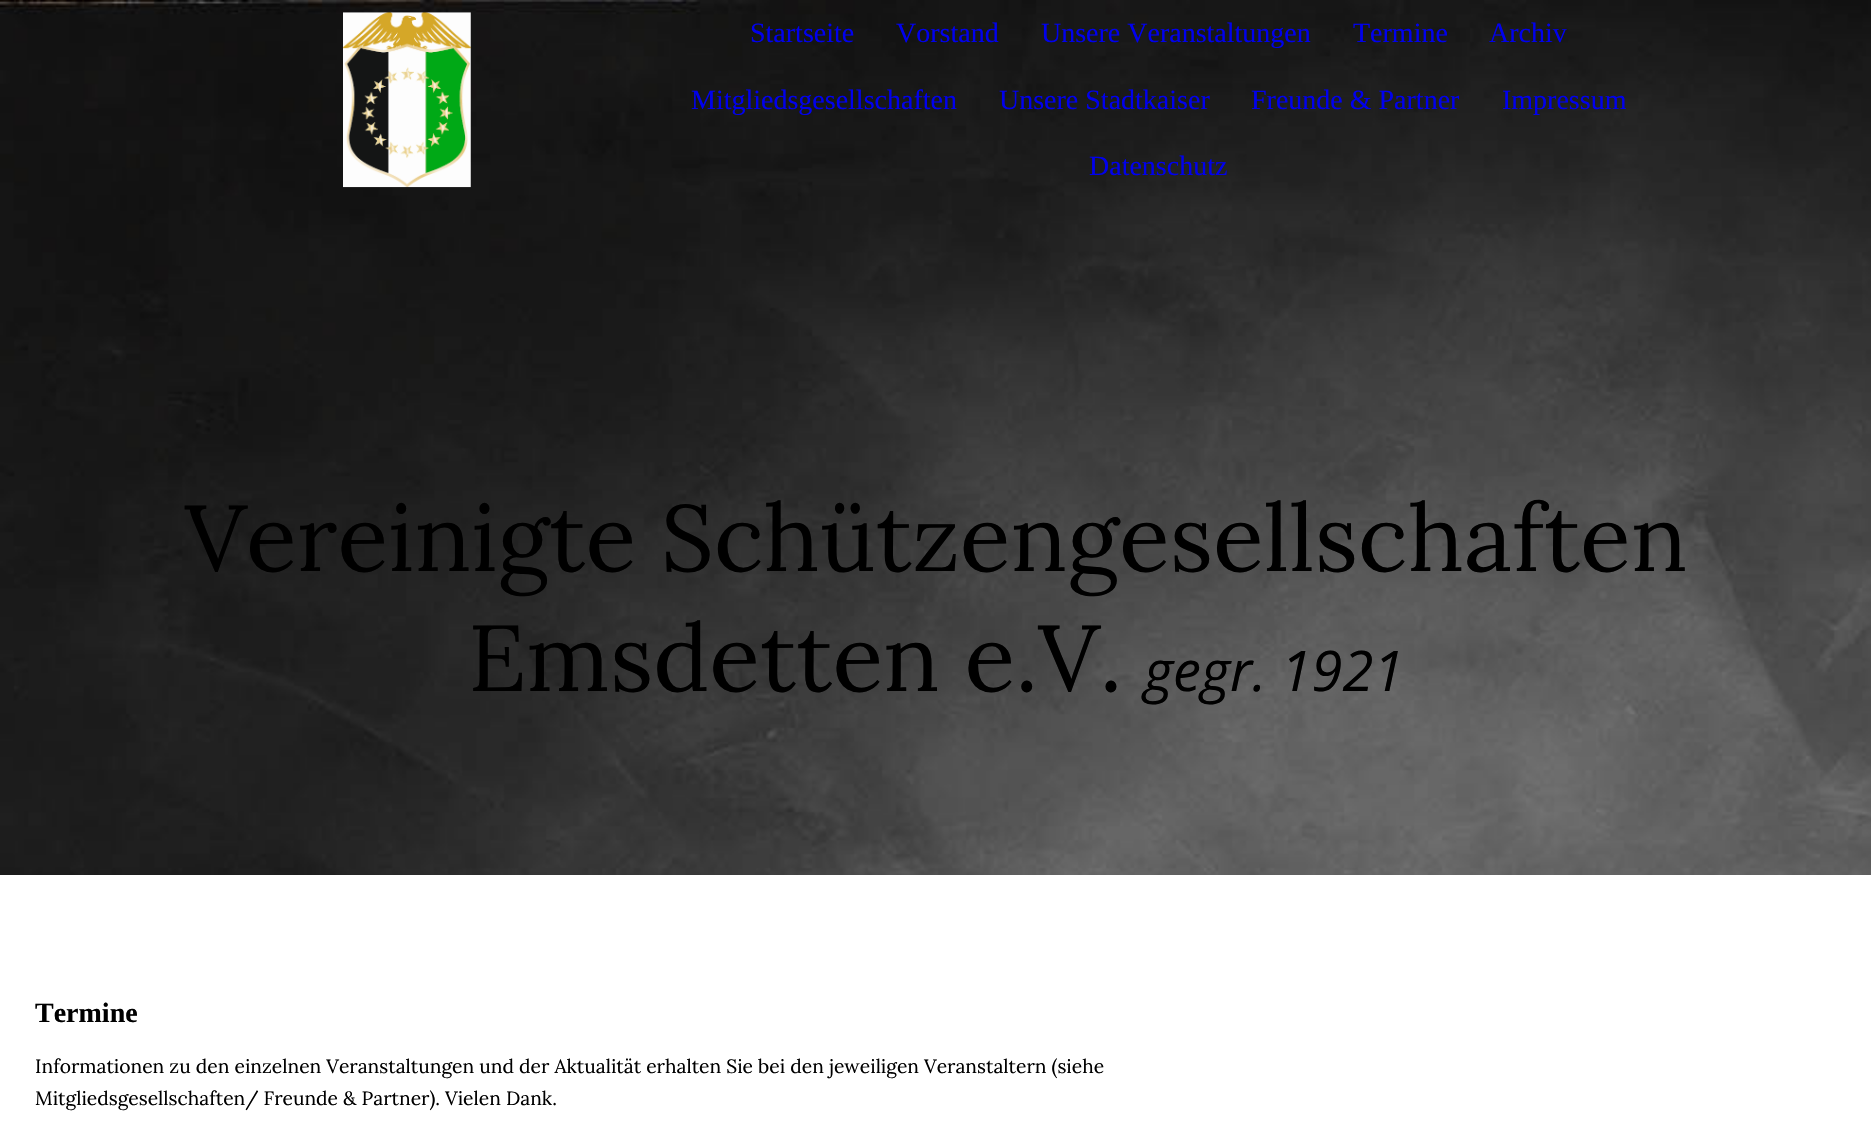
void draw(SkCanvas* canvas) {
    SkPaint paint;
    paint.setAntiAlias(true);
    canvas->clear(0xFFFFFFFF);
    canvas->drawImageRect(SkImages::DeferredFromEncodedData(SkData::MakeFromFileName("img1.png")), SkRect::MakeXYWH(0, 0, 1871, 875), SkSamplingOptions());
    canvas->drawImageRect(SkImages::DeferredFromEncodedData(SkData::MakeFromFileName("img2.png")), SkRect::MakeXYWH(343, 12, 128, 176), SkSamplingOptions());
    SkFont font1(fontMgr->matchFamilyStyle("Liberation Serif", SkFontStyle::Normal()), 28);
    font1.setSubpixel(true);
    paint.setColor(0xFF0000EE);
    canvas->drawString("Startseite", 750, 42, font1, paint);
    canvas->drawString("Vorstand", 896, 42, font1, paint);
    canvas->drawString("Unsere Veranstaltungen", 1041, 42, font1, paint);
    canvas->drawString("Termine", 1353, 42, font1, paint);
    canvas->drawString("Archiv", 1489, 42, font1, paint);
    canvas->drawString("Mitgliedsgesellschaften", 691, 109, font1, paint);
    canvas->drawString("Unsere Stadtkaiser", 999, 109, font1, paint);
    canvas->drawString("Freunde & Partner", 1251, 109, font1, paint);
    canvas->drawString("Impressum", 1502, 109, font1, paint);
    canvas->drawString("Datenschutz", 1089, 175, font1, paint);
    SkFont font2(fontMgr->matchFamilyStyle("Lora", SkFontStyle::Normal()), 93.6f);
    font2.setSubpixel(true);
    paint.setColor(0xFF000000);
    canvas->drawString("Vereinigte Schützengesellschaften", 185, 571, font2, paint);
    canvas->drawString("Emsdetten e.V.", 468, 691, font2, paint);
    SkFont font3(fontMgr->matchFamilyStyle("Open Sans", SkFontStyle::Italic()), 56);
    font3.setSubpixel(true);
    canvas->drawString("gegr. 1921", 1144, 691, font3, paint);
    SkFont font4(fontMgr->matchFamilyStyle("Liberation Serif", SkFontStyle::Bold()), 28);
    font4.setSubpixel(true);
    canvas->drawString("Termine", 35, 1022, font4, paint);
    SkFont font5(fontMgr->matchFamilyStyle("Lora", SkFontStyle::Normal()), 19.25f);
    font5.setSubpixel(true);
    canvas->drawString("Informationen zu den einzelnen Veranstaltungen und der Aktualität erhalten Sie bei den jeweiligen Veranstaltern (siehe", 35, 1073, font5, paint);
    canvas->drawString("Mitgliedsgesellschaften/ Freunde & Partner). Vielen Dank.", 35, 1105, font5, paint);
}
